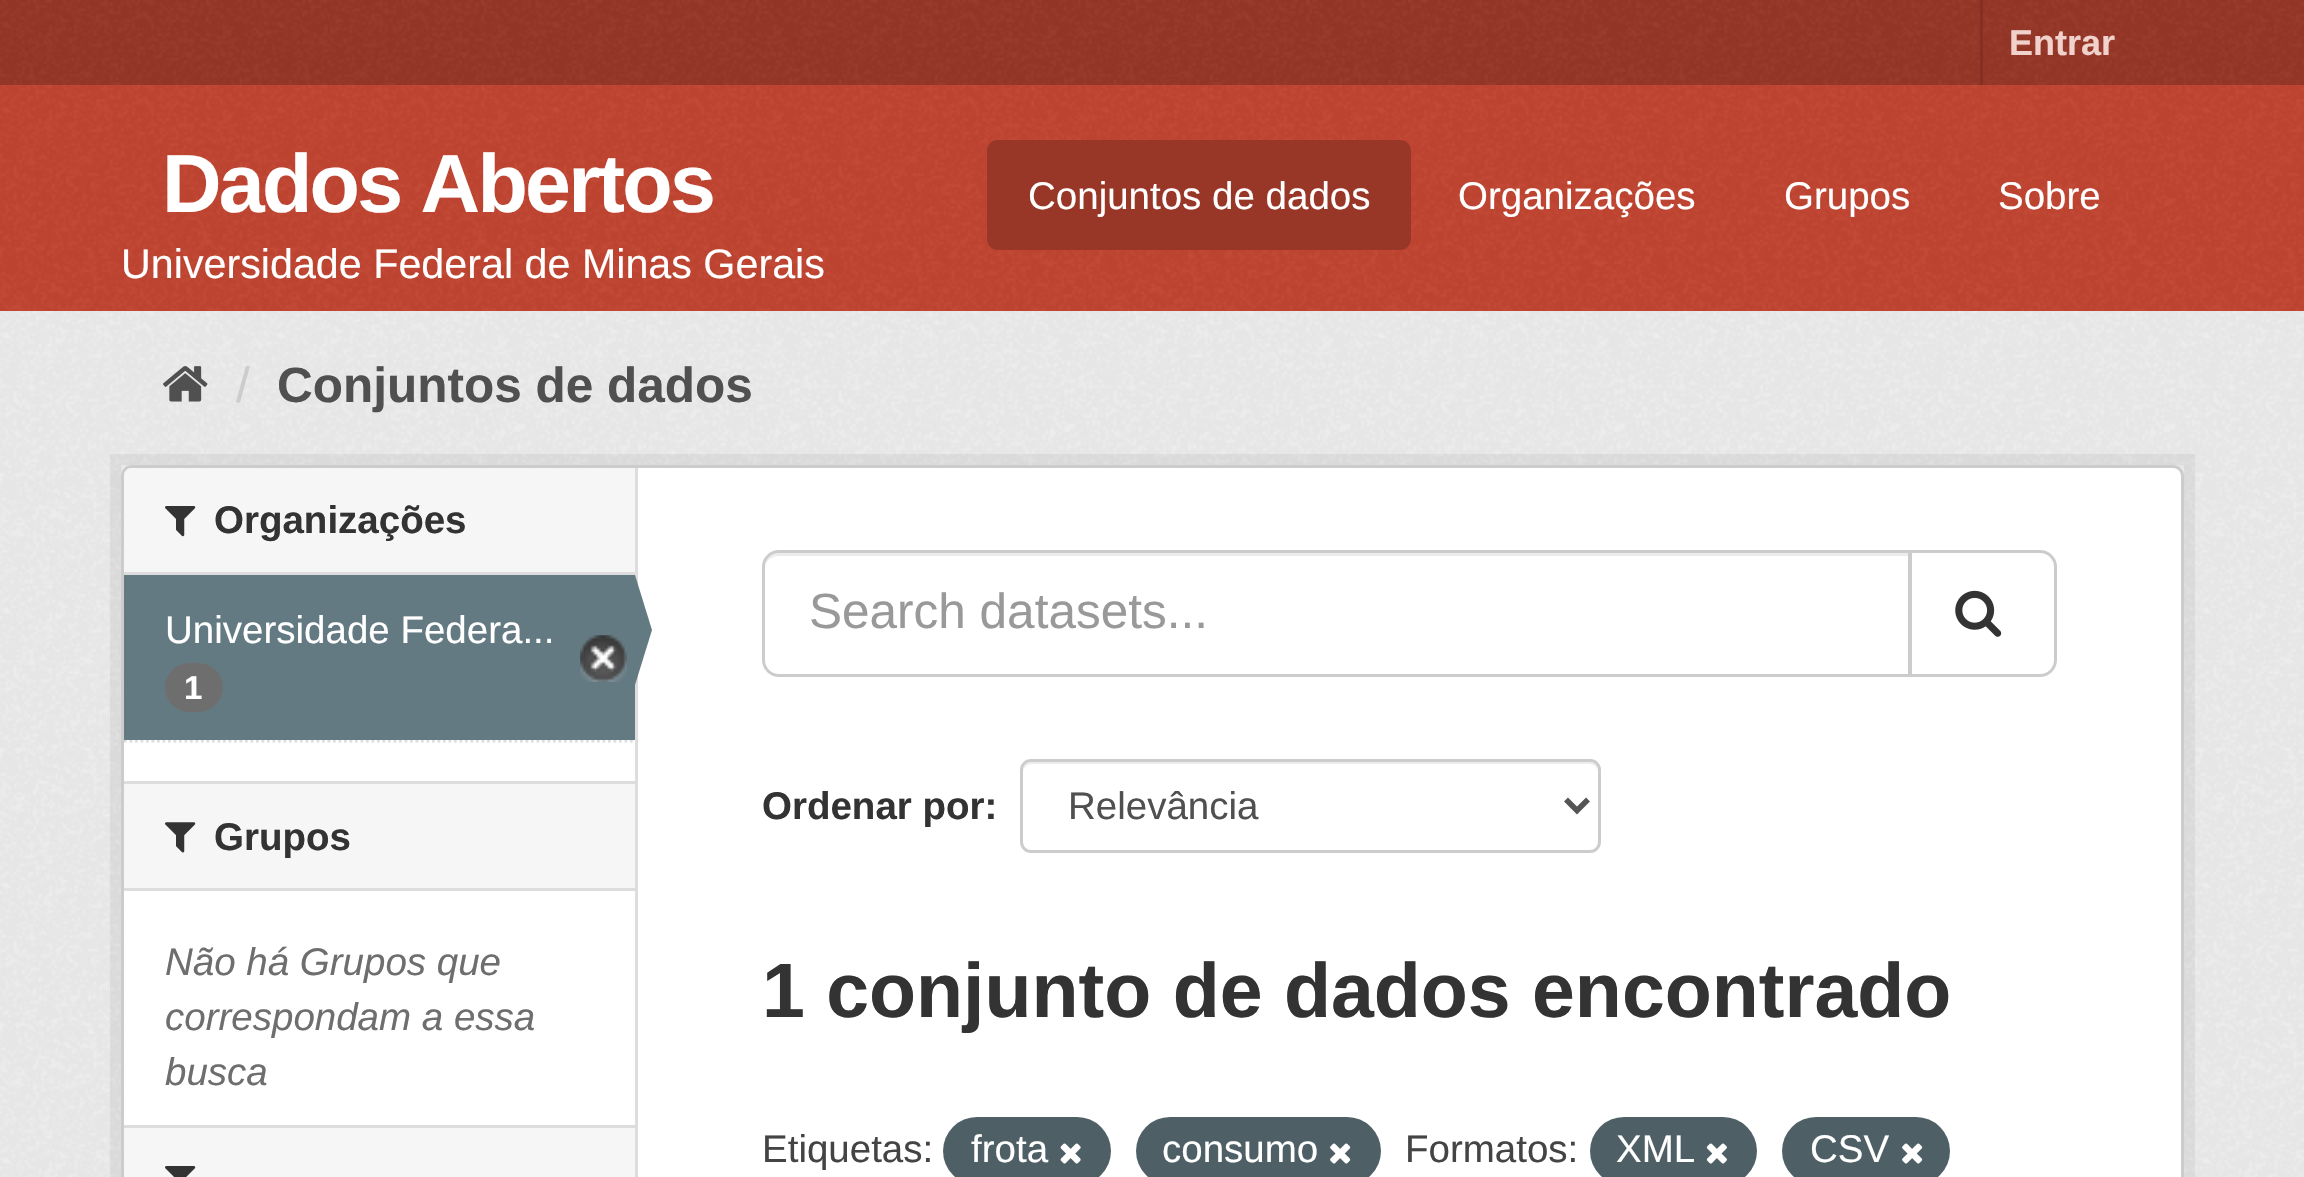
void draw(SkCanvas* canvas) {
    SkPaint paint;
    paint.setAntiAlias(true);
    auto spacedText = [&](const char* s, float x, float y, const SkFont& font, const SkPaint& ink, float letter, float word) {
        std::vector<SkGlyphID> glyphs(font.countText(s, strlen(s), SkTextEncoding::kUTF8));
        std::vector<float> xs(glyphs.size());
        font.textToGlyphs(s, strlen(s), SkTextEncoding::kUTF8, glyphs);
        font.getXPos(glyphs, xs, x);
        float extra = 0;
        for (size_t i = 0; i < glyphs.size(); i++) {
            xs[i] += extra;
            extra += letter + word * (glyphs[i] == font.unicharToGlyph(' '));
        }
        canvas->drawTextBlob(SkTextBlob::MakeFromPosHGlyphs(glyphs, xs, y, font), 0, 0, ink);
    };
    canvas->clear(0xFF983627);
    canvas->drawImageRect(SkImages::DeferredFromEncodedData(SkData::MakeFromFileName("img1.png")), SkRect::MakeXYWH(0, 0, 2304, 85), SkSamplingOptions());
    paint.setColor(0xFF842F22);
    canvas->drawRect(SkRect::MakeXYWH(1980, 0, 3, 85), paint);
    SkFont font1(fontMgr->matchFamilyStyle("Liberation Sans", SkFontStyle::Bold()), 36);
    font1.setSubpixel(true);
    paint.setColor(0xFFF0D1CC);
    canvas->drawString("Entrar", 2009, 55, font1, paint);
    paint.setColor(0xFFC14531);
    canvas->drawRect(SkRect::MakeXYWH(0, 85, 2304, 226), paint);
    canvas->drawImageRect(SkImages::DeferredFromEncodedData(SkData::MakeFromFileName("img2.png")), SkRect::MakeXYWH(0, 85, 2304, 226), SkSamplingOptions());
    SkFont font2(fontMgr->matchFamilyStyle("Liberation Sans", SkFontStyle::Bold()), 82.5f);
    font2.setSubpixel(true);
    paint.setColor(0xFFFFFFFF);
    spacedText("Dados Abertos", 162, 212, font2, paint, -2.75f, 0);
    SkFont font3(fontMgr->matchFamilyStyle("Liberation Sans", SkFontStyle::Normal()), 41.25f);
    font3.setSubpixel(true);
    canvas->drawString("Universidade Federal de Minas Gerais", 121, 278, font3, paint);
    paint.setColor(0xFF983627);
    canvas->drawRoundRect(SkRect::MakeXYWH(987, 140, 424, 110), 11, 11, paint);
    SkFont font4(fontMgr->matchFamilyStyle("Liberation Sans", SkFontStyle::Normal()), 38.5f);
    font4.setSubpixel(true);
    paint.setColor(0xFFFFFFFF);
    canvas->drawString("Conjuntos de dados", 1028, 209, font4, paint);
    canvas->drawString("Organizações", 1458, 209, font4, paint);
    canvas->drawString("Grupos", 1784, 209, font4, paint);
    canvas->drawString("Sobre", 1998, 209, font4, paint);
    paint.setColor(0xFFEEEEEE);
    canvas->drawRect(SkRect::MakeXYWH(0, 311, 2304, 866), paint);
    canvas->drawImageRect(SkImages::DeferredFromEncodedData(SkData::MakeFromFileName("img3.png")), SkRect::MakeXYWH(0, 311, 2304, 866), SkSamplingOptions());
    canvas->drawImageRect(SkImages::DeferredFromEncodedData(SkData::MakeFromFileName("img4.png")), SkRect::MakeXYWH(163, 366, 45, 36), SkSamplingOptions());
    SkFont font5(fontMgr->matchFamilyStyle("Liberation Sans", SkFontStyle::Normal()), 49.5f);
    font5.setSubpixel(true);
    paint.setColor(0xFFCCCCCC);
    canvas->drawString("/", 236, 402, font5, paint);
    SkFont font6(fontMgr->matchFamilyStyle("Liberation Sans", SkFontStyle::Bold()), 49.5f);
    font6.setSubpixel(true);
    paint.setColor(0xFF505050);
    canvas->drawString("Conjuntos de dados", 277, 402, font6, paint);
    paint.setStyle(SkPaint::kStroke_Style);
    paint.setStrokeWidth(11);
    paint.setColor(0x0D000000);
    canvas->drawRect(SkRect::MakeXYWH(115.5f, 459.5f, 2074, 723), paint);
    paint.setStyle(SkPaint::kFill_Style);
    paint.setColor(0xFFFFFFFF);
    canvas->drawRoundRect(SkRect::MakeXYWH(122.5f, 466.5f, 2060, 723), 9.5f, 9.5f, paint);
    paint.setStyle(SkPaint::kStroke_Style);
    paint.setStrokeWidth(3);
    paint.setColor(0xFFCCCCCC);
    canvas->drawRoundRect(SkRect::MakeXYWH(122.5f, 466.5f, 2060, 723), 9.5f, 9.5f, paint);
    paint.setStyle(SkPaint::kFill_Style);
    paint.setColor(0xFFF6F6F6);
    canvas->drawPath(SkPathBuilder().moveTo(132, 468).lineTo(635, 468).lineTo(635, 575).lineTo(124, 575).lineTo(124, 476).cubicTo(124, 471.5f, 127.5f, 468, 132, 468).close().detach(), paint);
    paint.setColor(0xFFDDDDDD);
    canvas->drawRect(SkRect::MakeXYWH(124, 572, 511, 3), paint);
    canvas->drawImageRect(SkImages::DeferredFromEncodedData(SkData::MakeFromFileName("img5.png")), SkRect::MakeXYWH(165, 506, 31, 31), SkSamplingOptions());
    SkFont font7(fontMgr->matchFamilyStyle("Liberation Sans", SkFontStyle::Bold()), 38.5f);
    font7.setSubpixel(true);
    paint.setColor(0xFF333333);
    canvas->drawString("Organizações", 214, 533, font7, paint);
    paint.setStyle(SkPaint::kStroke_Style);
    paint.setStrokeWidth(2.8f);
    paint.setColor(0xFFDDDDDD);
    paint.setPathEffect(SkDashPathEffect::Make({{2.75f, 2.75f}}, 0));
    canvas->drawPath(SkPathBuilder().moveTo(124, 741).lineTo(635, 741).detach(), paint);
    paint.setPathEffect(nullptr);
    paint.setStyle(SkPaint::kFill_Style);
    paint.setColor(0xFF647A82);
    canvas->drawRect(SkRect::MakeXYWH(124, 575, 511, 165), paint);
    paint.setColor(0xFFFFFFFF);
    canvas->drawString("Universidade Federa...", 165, 643, font4, paint);
    paint.setColor(0xFFDDDDDD);
    canvas->drawRect(SkRect::MakeXYWH(635, 468, 3, 709), paint);
    paint.setColor(0xFF647A82);
    canvas->drawPath(SkPathBuilder().moveTo(635, 685).lineTo(635, 575).lineTo(652, 630).close().detach(), paint);
    canvas->drawImageRect(SkImages::DeferredFromEncodedData(SkData::MakeFromFileName("img6.png")), SkRect::MakeXYWH(580, 635, 47, 47), SkSamplingOptions());
    paint.setColor(0xFF6E6E6E);
    canvas->drawRoundRect(SkRect::MakeXYWH(165, 663, 58, 49), 24.5f, 24.5f, paint);
    SkFont font8(fontMgr->matchFamilyStyle("Liberation Sans", SkFontStyle::Bold()), 33);
    font8.setSubpixel(true);
    paint.setColor(0xFFFFFFFF);
    canvas->drawString("1", 184, 699, font8, paint);
    paint.setColor(0xFFF6F6F6);
    canvas->drawRect(SkRect::MakeXYWH(124, 784, 511, 104), paint);
    paint.setColor(0xFFDDDDDD);
    canvas->drawRect(SkRect::MakeXYWH(124, 781, 511, 3), paint);
    canvas->drawRect(SkRect::MakeXYWH(124, 888, 511, 3), paint);
    canvas->drawImageRect(SkImages::DeferredFromEncodedData(SkData::MakeFromFileName("img7.png")), SkRect::MakeXYWH(165, 822, 31, 31), SkSamplingOptions());
    paint.setColor(0xFF333333);
    canvas->drawString("Grupos", 214, 850, font7, paint);
    SkFont font9(fontMgr->matchFamilyStyle("Liberation Sans", SkFontStyle::Italic()), 38.5f);
    font9.setSubpixel(true);
    paint.setColor(0xFF6E6E6E);
    canvas->drawString("Não há Grupos que", 165, 975, font9, paint);
    canvas->drawString("correspondam a essa", 165, 1030, font9, paint);
    canvas->drawString("busca", 165, 1085, font9, paint);
    paint.setColor(0xFFF6F6F6);
    canvas->drawRect(SkRect::MakeXYWH(124, 1128, 511, 49), paint);
    paint.setColor(0xFFDDDDDD);
    canvas->drawRect(SkRect::MakeXYWH(124, 1125, 511, 3), paint);
    canvas->drawImageRect(SkImages::DeferredFromEncodedData(SkData::MakeFromFileName("img8.png")), SkRect::MakeXYWH(165, 1166, 31, 11), SkSamplingOptions());
    paint.setColor(0xFFECECEC);
    canvas->drawPath(SkPathBuilder().moveTo(778, 556).lineTo(1908, 556).lineTo(1908, 674).lineTo(1909, 674).lineTo(1909, 553).lineTo(779, 553).cubicTo(772, 553, 767, 558, 765, 564).cubicTo(768, 559, 773, 556, 778, 556).close().detach(), paint);
    paint.setStyle(SkPaint::kStroke_Style);
    paint.setStrokeWidth(3);
    paint.setColor(0xFFCCCCCC);
    canvas->drawPath(SkPathBuilder().moveTo(779, 551.5f).lineTo(1909.5f, 551.5f).lineTo(1909.5f, 675.5f).lineTo(779, 675.5f).cubicTo(770.5f, 675.5f, 763.5f, 668.5f, 763.5f, 660).lineTo(763.5f, 567).cubicTo(763.5f, 558.5f, 770.5f, 551.5f, 779, 551.5f).close().detach(), paint);
    paint.setStyle(SkPaint::kFill_Style);
    paint.setColor(0xFF999999);
    canvas->drawString("Search datasets...", 809, 628, font5, paint);
    paint.setColor(0xFFFFFFFF);
    canvas->drawPath(SkPathBuilder().moveTo(1910.5f, 551.5f).lineTo(2040, 551.5f).cubicTo(2048.5f, 551.5f, 2055.5f, 558.5f, 2055.5f, 567).lineTo(2055.5f, 660).cubicTo(2055.5f, 668.5f, 2048.5f, 675.5f, 2040, 675.5f).lineTo(1910.5f, 675.5f).close().detach(), paint);
    paint.setStyle(SkPaint::kStroke_Style);
    paint.setColor(0xFFCCCCCC);
    canvas->drawPath(SkPathBuilder().moveTo(1910.5f, 551.5f).lineTo(2040, 551.5f).cubicTo(2048.5f, 551.5f, 2055.5f, 558.5f, 2055.5f, 567).lineTo(2055.5f, 660).cubicTo(2055.5f, 668.5f, 2048.5f, 675.5f, 2040, 675.5f).lineTo(1910.5f, 675.5f).close().detach(), paint);
    canvas->drawImageRect(SkImages::DeferredFromEncodedData(SkData::MakeFromFileName("img9.png")), SkRect::MakeXYWH(1955, 590, 47, 47), SkSamplingOptions());
    paint.setStyle(SkPaint::kFill_Style);
    paint.setColor(0xFF333333);
    canvas->drawString("Ordenar por:", 762, 819, font7, paint);
    paint.setColor(0xFFECECEC);
    canvas->drawPath(SkPathBuilder().moveTo(1031, 764).lineTo(1590, 764).cubicTo(1594, 764, 1598, 768, 1598, 773).cubicTo(1598, 768, 1596, 762, 1590, 762).lineTo(1031, 762).cubicTo(1025, 762, 1023, 768, 1023, 773).cubicTo(1023, 768, 1027, 764, 1031, 764).close().detach(), paint);
    paint.setStyle(SkPaint::kStroke_Style);
    paint.setColor(0xFFCCCCCC);
    canvas->drawRoundRect(SkRect::MakeXYWH(1021.5f, 760.5f, 578, 91), 9.5f, 9.5f, paint);
    paint.setStrokeWidth(5.5f);
    paint.setColor(0xFF555555);
    canvas->drawPath(SkPathBuilder().moveTo(1566, 799.5f).lineTo(1577, 810.5f).lineTo(1588, 799.5f).detach(), paint);
    paint.setStyle(SkPaint::kFill_Style);
    paint.setColor(0xFF505050);
    canvas->drawString("Relevância", 1068, 819, font4, paint);
    SkFont font10(fontMgr->matchFamilyStyle("Liberation Sans", SkFontStyle::Bold()), 77);
    font10.setSubpixel(true);
    paint.setColor(0xFF333333);
    canvas->drawString("1 conjunto de dados encontrado", 762, 1017, font10, paint);
    paint.setColor(0xFF444444);
    canvas->drawString("Etiquetas:", 762, 1162, font4, paint);
    paint.setColor(0xFF4E5F65);
    canvas->drawRoundRect(SkRect::MakeXYWH(943, 1117, 168, 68), 34, 34, paint);
    paint.setColor(0xFFFFFFFF);
    canvas->drawString("frota", 971, 1162, font4, paint);
    canvas->drawImageRect(SkImages::DeferredFromEncodedData(SkData::MakeFromFileName("img10.png")), SkRect::MakeXYWH(1060, 1143, 21, 21), SkSamplingOptions());
    paint.setColor(0xFF4E5F65);
    canvas->drawRoundRect(SkRect::MakeXYWH(1136, 1117, 245, 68), 34, 34, paint);
    paint.setColor(0xFFFFFFFF);
    canvas->drawString("consumo", 1162, 1162, font4, paint);
    canvas->drawImageRect(SkImages::DeferredFromEncodedData(SkData::MakeFromFileName("img11.png")), SkRect::MakeXYWH(1330, 1143, 21, 21), SkSamplingOptions());
    paint.setColor(0xFF444444);
    canvas->drawString("Formatos:", 1405, 1162, font4, paint);
    paint.setColor(0xFF4E5F65);
    canvas->drawRoundRect(SkRect::MakeXYWH(1590, 1117, 167, 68), 34, 34, paint);
    paint.setColor(0xFFFFFFFF);
    canvas->drawString("XML", 1616, 1162, font4, paint);
    canvas->drawImageRect(SkImages::DeferredFromEncodedData(SkData::MakeFromFileName("img12.png")), SkRect::MakeXYWH(1706, 1143, 21, 21), SkSamplingOptions());
    paint.setColor(0xFF4E5F65);
    canvas->drawRoundRect(SkRect::MakeXYWH(1782, 1117, 168, 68), 34, 34, paint);
    paint.setColor(0xFFFFFFFF);
    canvas->drawString("CSV", 1810, 1162, font4, paint);
    canvas->drawImageRect(SkImages::DeferredFromEncodedData(SkData::MakeFromFileName("img11.png")), SkRect::MakeXYWH(1902, 1143, 21, 21), SkSamplingOptions());
}
